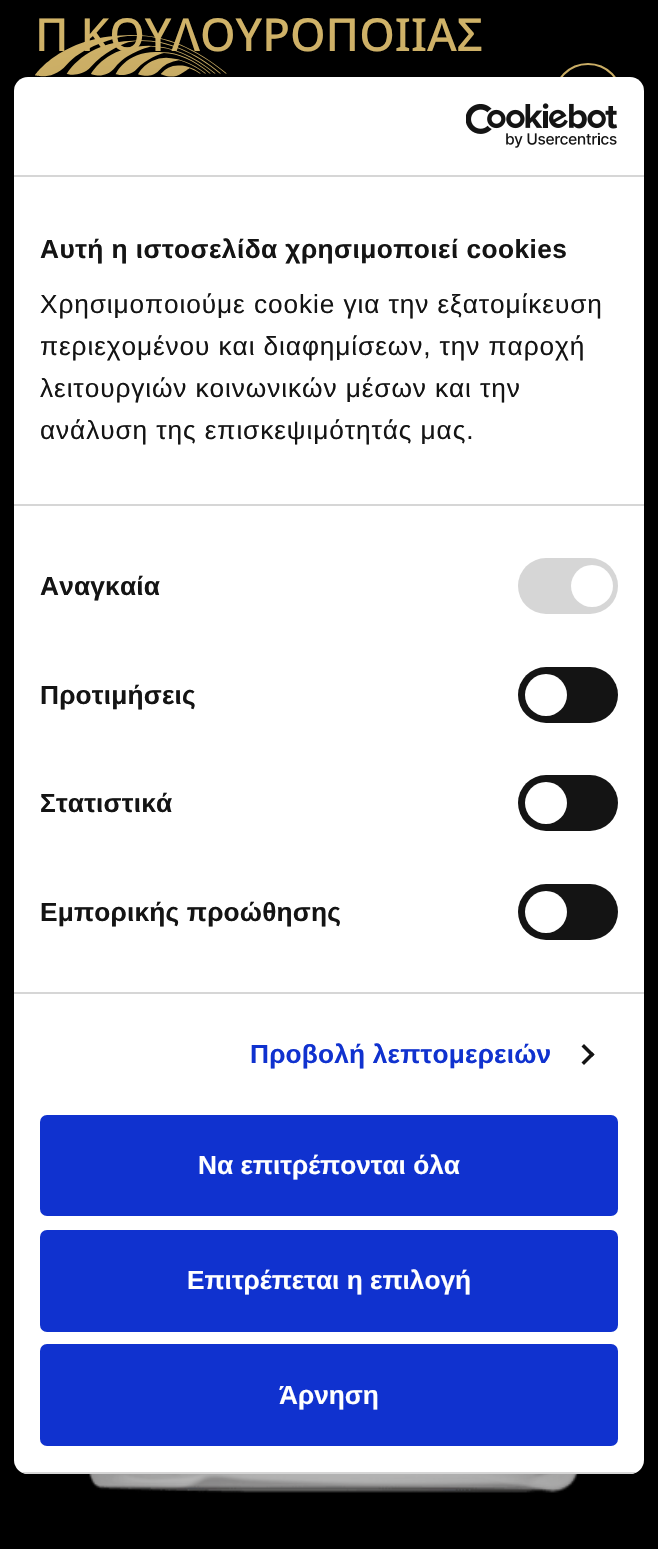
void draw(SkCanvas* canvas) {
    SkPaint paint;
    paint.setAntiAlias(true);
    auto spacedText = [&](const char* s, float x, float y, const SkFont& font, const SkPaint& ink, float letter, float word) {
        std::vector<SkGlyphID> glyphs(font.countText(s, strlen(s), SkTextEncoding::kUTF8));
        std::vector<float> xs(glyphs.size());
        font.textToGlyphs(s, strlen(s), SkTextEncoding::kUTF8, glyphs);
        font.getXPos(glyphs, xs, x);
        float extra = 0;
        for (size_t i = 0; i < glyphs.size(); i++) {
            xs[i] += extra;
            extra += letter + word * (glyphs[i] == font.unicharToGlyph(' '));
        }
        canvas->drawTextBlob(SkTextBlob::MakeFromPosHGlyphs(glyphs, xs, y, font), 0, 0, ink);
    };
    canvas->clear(0xFF000000);
    SkFont font1(fontMgr->matchFamilyStyle("Noto Sans", SkFontStyle(500, SkFontStyle::kNormal_Width, SkFontStyle::kUpright_Slant)), 45.5f);
    font1.setSubpixel(true);
    paint.setColor(0xFFD2B469);
    canvas->drawString("Π ΚΟΥΛΟΥΡΟΠΟΙΙΑΣ", 35, 51, font1, paint);
    canvas->drawImageRect(SkImages::DeferredFromEncodedData(SkData::MakeFromFileName("img1.png")), SkRect::MakeXYWH(89, 1474, 490, 19), SkSamplingOptions());
    canvas->drawImageRect(SkImages::DeferredFromEncodedData(SkData::MakeFromFileName("img2.png")), SkRect::MakeXYWH(35, 35, 192, 42), SkSamplingOptions());
    paint.setStyle(SkPaint::kStroke_Style);
    paint.setStrokeWidth(2);
    canvas->drawCircle(588, 98, 34, paint);
    paint.setStyle(SkPaint::kFill_Style);
    paint.setColor(0x4D000000);
    paint.setMaskFilter(SkMaskFilter::MakeBlur(kNormal_SkBlurStyle, 59.5f));
    canvas->drawRoundRect(SkRect::MakeXYWH(14, 133, 630, 1397), 14, 14, paint);
    paint.setMaskFilter(nullptr);
    paint.setColor(0xFFFFFFFF);
    canvas->drawRoundRect(SkRect::MakeXYWH(14, 77, 630, 1397), 14, 14, paint);
    paint.setColor(0xFFD6D6D6);
    canvas->drawRect(SkRect::MakeXYWH(14, 175, 630, 2), paint);
    canvas->drawImageRect(SkImages::DeferredFromEncodedData(SkData::MakeFromFileName("img3.png")), SkRect::MakeXYWH(466, 103, 152, 45), SkSamplingOptions());
    canvas->drawRect(SkRect::MakeXYWH(14, 504, 630, 2), paint);
    SkFont font2(fontMgr->matchFamilyStyle("Liberation Sans", SkFontStyle::Bold()), 26.25f);
    font2.setSubpixel(true);
    paint.setColor(0xFF141414);
    spacedText("Αυτή η ιστοσελίδα χρησιμοποιεί cookies", 40, 258, font2, paint, 0.45f, 0);
    SkFont font3(fontMgr->matchFamilyStyle("Liberation Sans", SkFontStyle::Normal()), 26.25f);
    font3.setSubpixel(true);
    spacedText("Χρησιμοποιούμε cookie για την εξατομίκευση", 40, 313, font3, paint, 0.9f, 0);
    spacedText("περιεχομένου και διαφημίσεων, την παροχή", 40, 355, font3, paint, 0.9f, 0);
    spacedText("λειτουργιών κοινωνικών μέσων και την", 40, 397, font3, paint, 0.9f, 0);
    spacedText("ανάλυση της επισκεψιμότητάς μας.", 40, 439, font3, paint, 0.9f, 0);
    paint.setColor(0xFFD6D6D6);
    canvas->drawRect(SkRect::MakeXYWH(14, 992, 630, 2), paint);
    paint.setColor(0xFF141414);
    spacedText("Αναγκαία", 40, 595, font2, paint, 0.2f, 0);
    paint.setColor(0xFFD6D6D6);
    canvas->drawRoundRect(SkRect::MakeXYWH(518, 558, 100, 56), 28, 28, paint);
    paint.setColor(0xFFFFFFFF);
    canvas->drawCircle(592, 586, 21, paint);
    paint.setColor(0xFF141414);
    spacedText("Προτιμήσεις", 40, 704, font2, paint, 0.2f, 0);
    canvas->drawRoundRect(SkRect::MakeXYWH(518, 667, 100, 56), 28, 28, paint);
    paint.setColor(0xFFFFFFFF);
    canvas->drawCircle(546, 695, 21, paint);
    paint.setColor(0xFF141414);
    spacedText("Στατιστικά", 40, 812, font2, paint, 0.2f, 0);
    canvas->drawRoundRect(SkRect::MakeXYWH(518, 775, 100, 56), 28, 28, paint);
    paint.setColor(0xFFFFFFFF);
    canvas->drawCircle(546, 803, 21, paint);
    paint.setColor(0xFF141414);
    spacedText("Εμπορικής προώθησης", 40, 921, font2, paint, 0.2f, 0);
    canvas->drawRoundRect(SkRect::MakeXYWH(518, 884, 100, 56), 28, 28, paint);
    paint.setColor(0xFFFFFFFF);
    canvas->drawCircle(546, 912, 21, paint);
    paint.setColor(0xFF1032CF);
    spacedText("Προβολή λεπτομερειών", 250, 1063, font2, paint, 0.2f, 0);
    paint.setColor(0xFF141414);
    canvas->drawPath(SkPathBuilder().moveTo(584, 1044).lineTo(594.5f, 1054.5f).lineTo(592, 1057).lineTo(581.5f, 1046.5f).close().detach(), paint);
    canvas->drawPath(SkPathBuilder().moveTo(592, 1052).lineTo(594.5f, 1054.5f).lineTo(584, 1065).lineTo(581.5f, 1062.5f).close().detach(), paint);
    canvas->save();
    canvas->clipPath(SkPathBuilder().moveTo(28, 77).lineTo(630, 77).cubicTo(637.5f, 77, 644, 83.5f, 644, 91).lineTo(644, 1460).cubicTo(644, 1467.5f, 637.5f, 1474, 630, 1474).lineTo(28, 1474).cubicTo(20.5f, 1474, 14, 1467.5f, 14, 1460).lineTo(14, 91).cubicTo(14, 83.5f, 20.5f, 77, 28, 77).close().detach(), true);
    paint.setColor(0xFFD6D6D6);
    canvas->drawRect(SkRect::MakeXYWH(14, 1472, 630, 2), paint);
    canvas->restore();
    paint.setColor(0xFF1032CF);
    canvas->drawRoundRect(SkRect::MakeXYWH(42, 1117, 574, 97), 5, 5, paint);
    paint.setStyle(SkPaint::kStroke_Style);
    paint.setStrokeWidth(4);
    canvas->drawRoundRect(SkRect::MakeXYWH(42, 1117, 574, 97), 5, 5, paint);
    paint.setStyle(SkPaint::kFill_Style);
    paint.setColor(0xFFFFFFFF);
    canvas->drawString("Να επιτρέπονται όλα", 198, 1174, font2, paint);
    paint.setColor(0xFF1032CF);
    canvas->drawRoundRect(SkRect::MakeXYWH(42, 1232, 574, 98), 5, 5, paint);
    paint.setStyle(SkPaint::kStroke_Style);
    canvas->drawRoundRect(SkRect::MakeXYWH(42, 1232, 574, 98), 5, 5, paint);
    paint.setStyle(SkPaint::kFill_Style);
    paint.setColor(0xFFFFFFFF);
    canvas->drawString("Επιτρέπεται η επιλογή", 187, 1289, font2, paint);
    paint.setColor(0xFF1032CF);
    canvas->drawRoundRect(SkRect::MakeXYWH(42, 1346, 574, 98), 5, 5, paint);
    paint.setStyle(SkPaint::kStroke_Style);
    canvas->drawRoundRect(SkRect::MakeXYWH(42, 1346, 574, 98), 5, 5, paint);
    paint.setStyle(SkPaint::kFill_Style);
    paint.setColor(0xFFFFFFFF);
    canvas->drawString("Άρνηση", 279, 1404, font2, paint);
}
